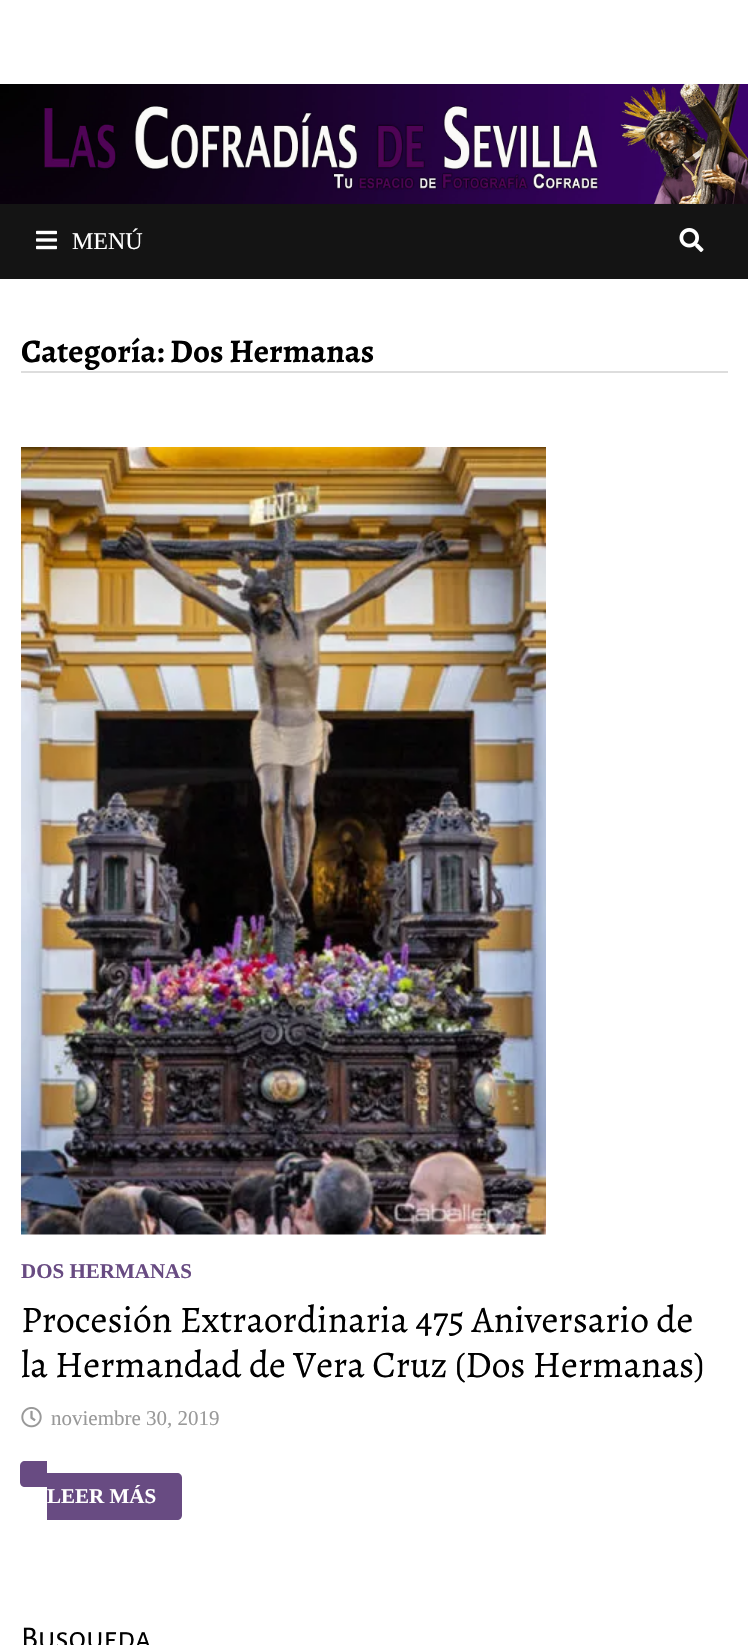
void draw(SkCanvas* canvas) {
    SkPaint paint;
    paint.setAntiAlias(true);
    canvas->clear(0xFFFFFFFF);
    canvas->drawImageRect(SkImages::DeferredFromEncodedData(SkData::MakeFromFileName("img1.png")), SkRect::MakeXYWH(0, 84, 748, 120), SkSamplingOptions());
    paint.setColor(0xFF141414);
    canvas->drawRect(SkRect::MakeXYWH(0, 204, 748, 75), paint);
    canvas->drawImageRect(SkImages::DeferredFromEncodedData(SkData::MakeFromFileName("img2.png")), SkRect::MakeXYWH(36, 230, 21, 20), SkSamplingOptions());
    SkFont font1(fontMgr->matchFamilyStyle("Liberation Serif", SkFontStyle::Normal()), 24);
    font1.setSubpixel(true);
    paint.setColor(0xFFFFFFFF);
    canvas->drawString("MENÚ", 72, 249, font1, paint);
    canvas->drawImageRect(SkImages::DeferredFromEncodedData(SkData::MakeFromFileName("img3.png")), SkRect::MakeXYWH(679, 228, 25, 24), SkSamplingOptions());
    paint.setColor(0xFFDDDDDD);
    canvas->drawRect(SkRect::MakeXYWH(21, 371, 707, 2), paint);
    SkFont font2(fontMgr->matchFamilyStyle("Alegreya", SkFontStyle::Bold()), 33);
    font2.setSubpixel(true);
    paint.setColor(0xFF000000);
    canvas->drawString("Categoría: Dos Hermanas", 21, 362, font2, paint);
    canvas->drawImageRect(SkImages::DeferredFromEncodedData(SkData::MakeFromFileName("img4.png")), SkRect::MakeXYWH(21, 447, 525, 788), SkSamplingOptions());
    SkFont font3(fontMgr->matchFamilyStyle("Liberation Serif", SkFontStyle::Bold()), 21);
    font3.setSubpixel(true);
    paint.setColor(0xFF684B82);
    canvas->drawString("DOS HERMANAS", 21, 1278, font3, paint);
    SkFont font4(fontMgr->matchFamilyStyle("Alegreya", SkFontStyle::Normal()), 37.5f);
    font4.setSubpixel(true);
    paint.setColor(0xFF000000);
    canvas->drawString("Procesión Extraordinaria 475 Aniversario de", 21, 1332, font4, paint);
    canvas->drawString("la Hermandad de Vera Cruz (Dos Hermanas)", 21, 1377, font4, paint);
    canvas->drawImageRect(SkImages::DeferredFromEncodedData(SkData::MakeFromFileName("img5.png")), SkRect::MakeXYWH(21, 1407, 21, 21), SkSamplingOptions());
    SkFont font5(fontMgr->matchFamilyStyle("Liberation Serif", SkFontStyle::Normal()), 21);
    font5.setSubpixel(true);
    paint.setColor(0xFF999999);
    canvas->drawString("noviembre 30, 2019", 51, 1425, font5, paint);
    paint.setColor(0xFF684B82);
    canvas->drawPath(SkPathBuilder().moveTo(25, 1461).lineTo(47, 1461).lineTo(47, 1487).lineTo(25, 1487).cubicTo(22, 1487, 20, 1485, 20, 1482).lineTo(20, 1466).cubicTo(20, 1463, 22, 1461, 25, 1461).close().detach(), paint);
    canvas->drawPath(SkPathBuilder().moveTo(47, 1473).lineTo(177, 1473).cubicTo(180, 1473, 182, 1475, 182, 1478).lineTo(182, 1515).cubicTo(182, 1518, 180, 1520, 177, 1520).lineTo(47, 1520).close().detach(), paint);
    paint.setColor(0xFFFFFFFF);
    canvas->drawString("LEER MÁS", 47, 1503, font3, paint);
    SkFont font6(fontMgr->matchFamilyStyle("Alegreya Sans SC", SkFontStyle::Normal()), 31.5f);
    font6.setSubpixel(true);
    paint.setColor(0xFF000000);
    canvas->drawString("Busqueda", 21, 1648, font6, paint);
}
